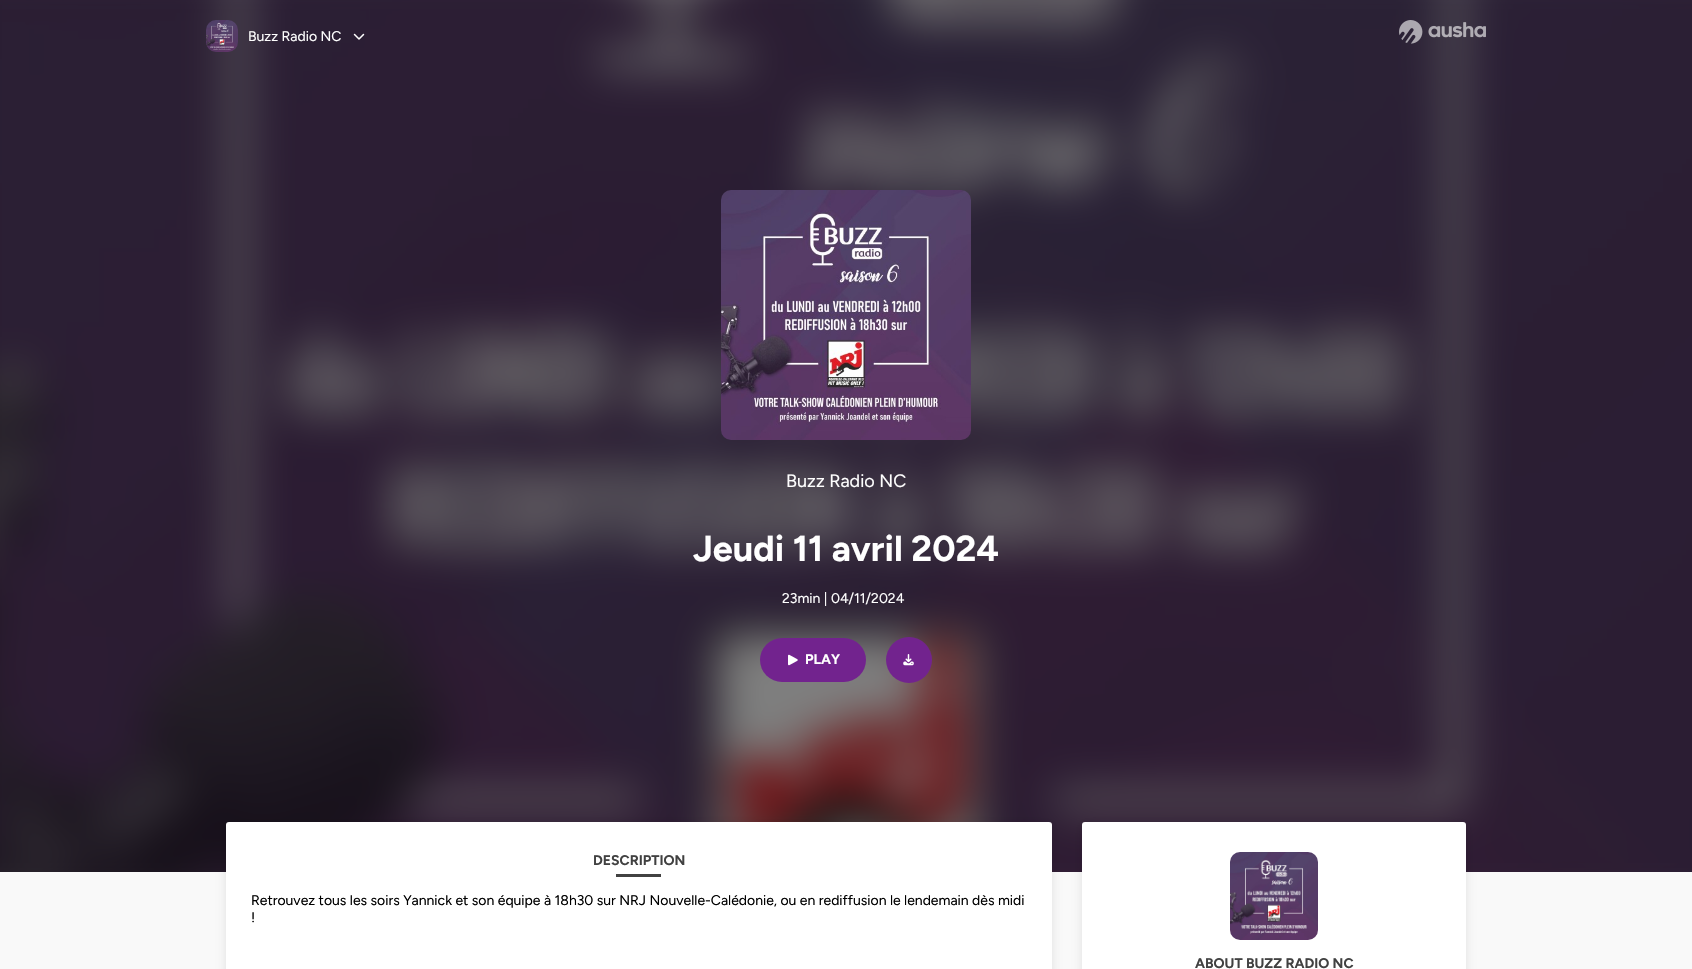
void draw(SkCanvas* canvas) {
    SkPaint paint;
    paint.setAntiAlias(true);
    canvas->clear(0xFFFFFFFF);
    canvas->drawImageRect(SkImages::DeferredFromEncodedData(SkData::MakeFromFileName("img1.png")), SkRect::MakeXYWH(0, 0, 1692, 872), SkSamplingOptions());
    paint.setColor(0x80000000);
    paint.setMaskFilter(SkMaskFilter::MakeBlur(kNormal_SkBlurStyle, 20));
    canvas->drawRect(SkRect::MakeXYWH(-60, -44, 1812, 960), paint);
    paint.setMaskFilter(nullptr);
    canvas->drawImageRect(SkImages::DeferredFromEncodedData(SkData::MakeFromFileName("img2.png")), SkRect::MakeXYWH(206, 20, 32, 32), SkSamplingOptions());
    SkFont font1(fontMgr->matchFamilyStyle("Figtree", SkFontStyle::Normal()), 14);
    font1.setSubpixel(true);
    paint.setColor(0xFFFFFFFF);
    canvas->drawString("Buzz Radio NC", 248, 41, font1, paint);
    canvas->drawImageRect(SkImages::DeferredFromEncodedData(SkData::MakeFromFileName("img3.png")), SkRect::MakeXYWH(353, 33, 12, 7), SkSamplingOptions());
    canvas->drawImageRect(SkImages::DeferredFromEncodedData(SkData::MakeFromFileName("img4.png")), SkRect::MakeXYWH(1399, 20, 87, 24), SkSamplingOptions());
    canvas->drawImageRect(SkImages::DeferredFromEncodedData(SkData::MakeFromFileName("img5.png")), SkRect::MakeXYWH(721, 190, 250, 250), SkSamplingOptions());
    SkFont font2(fontMgr->matchFamilyStyle("Figtree", SkFontStyle::Normal()), 18);
    font2.setSubpixel(true);
    canvas->drawString("Buzz Radio NC", 786, 487, font2, paint);
    SkFont font3(fontMgr->matchFamilyStyle("Figtree", SkFontStyle::Bold()), 36);
    font3.setSubpixel(true);
    canvas->drawString("Jeudi 11 avril 2024", 693, 561, font3, paint);
    canvas->drawString("23min | 04/11/2024", 782, 603, font1, paint);
    paint.setColor(0xFF72238E);
    canvas->drawRoundRect(SkRect::MakeXYWH(760, 638, 106, 44), 22, 22, paint);
    canvas->drawImageRect(SkImages::DeferredFromEncodedData(SkData::MakeFromFileName("img6.png")), SkRect::MakeXYWH(788, 654, 10, 12), SkSamplingOptions());
    SkFont font4(fontMgr->matchFamilyStyle("Figtree", SkFontStyle::Bold()), 14);
    font4.setSubpixel(true);
    paint.setColor(0xFFFFFFFF);
    canvas->drawString("PLAY", 805, 664, font4, paint);
    paint.setColor(0xFF72238E);
    canvas->drawCircle(909, 660, 23, paint);
    canvas->drawImageRect(SkImages::DeferredFromEncodedData(SkData::MakeFromFileName("img7.png")), SkRect::MakeXYWH(903, 654, 11, 12), SkSamplingOptions());
    paint.setColor(0xFFF9F9F9);
    canvas->drawRect(SkRect::MakeXYWH(0, 872, 1692, 97), paint);
    paint.setColor(0x1A000000);
    paint.setMaskFilter(SkMaskFilter::MakeBlur(kNormal_SkBlurStyle, 5));
    canvas->drawRoundRect(SkRect::MakeXYWH(226, 824, 826, 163), 3, 3, paint);
    paint.setMaskFilter(nullptr);
    paint.setColor(0xFFFFFFFF);
    canvas->drawRoundRect(SkRect::MakeXYWH(226, 822, 826, 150), 3, 3, paint);
    paint.setColor(0xFF414141);
    canvas->drawString("DESCRIPTION", 593, 865, font4, paint);
    canvas->drawRect(SkRect::MakeXYWH(616, 874, 45, 3), paint);
    paint.setColor(0xFF000000);
    canvas->drawString("Retrouvez tous les soirs Yannick et son équipe à 18h30 sur NRJ Nouvelle-Calédonie, ou en rediffusion le lendemain dès midi", 251, 905, font1, paint);
    canvas->drawString("!", 251, 922, font1, paint);
    paint.setColor(0x1A000000);
    paint.setMaskFilter(SkMaskFilter::MakeBlur(kNormal_SkBlurStyle, 5));
    canvas->drawRoundRect(SkRect::MakeXYWH(1082, 824, 384, 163), 3, 3, paint);
    paint.setMaskFilter(nullptr);
    paint.setColor(0xFFFFFFFF);
    canvas->drawRoundRect(SkRect::MakeXYWH(1082, 822, 384, 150), 3, 3, paint);
    canvas->drawImageRect(SkImages::DeferredFromEncodedData(SkData::MakeFromFileName("img8.png")), SkRect::MakeXYWH(1230, 852, 88, 88), SkSamplingOptions());
    paint.setColor(0xFF414141);
    canvas->drawString("ABOUT BUZZ RADIO NC", 1195, 968, font4, paint);
}
